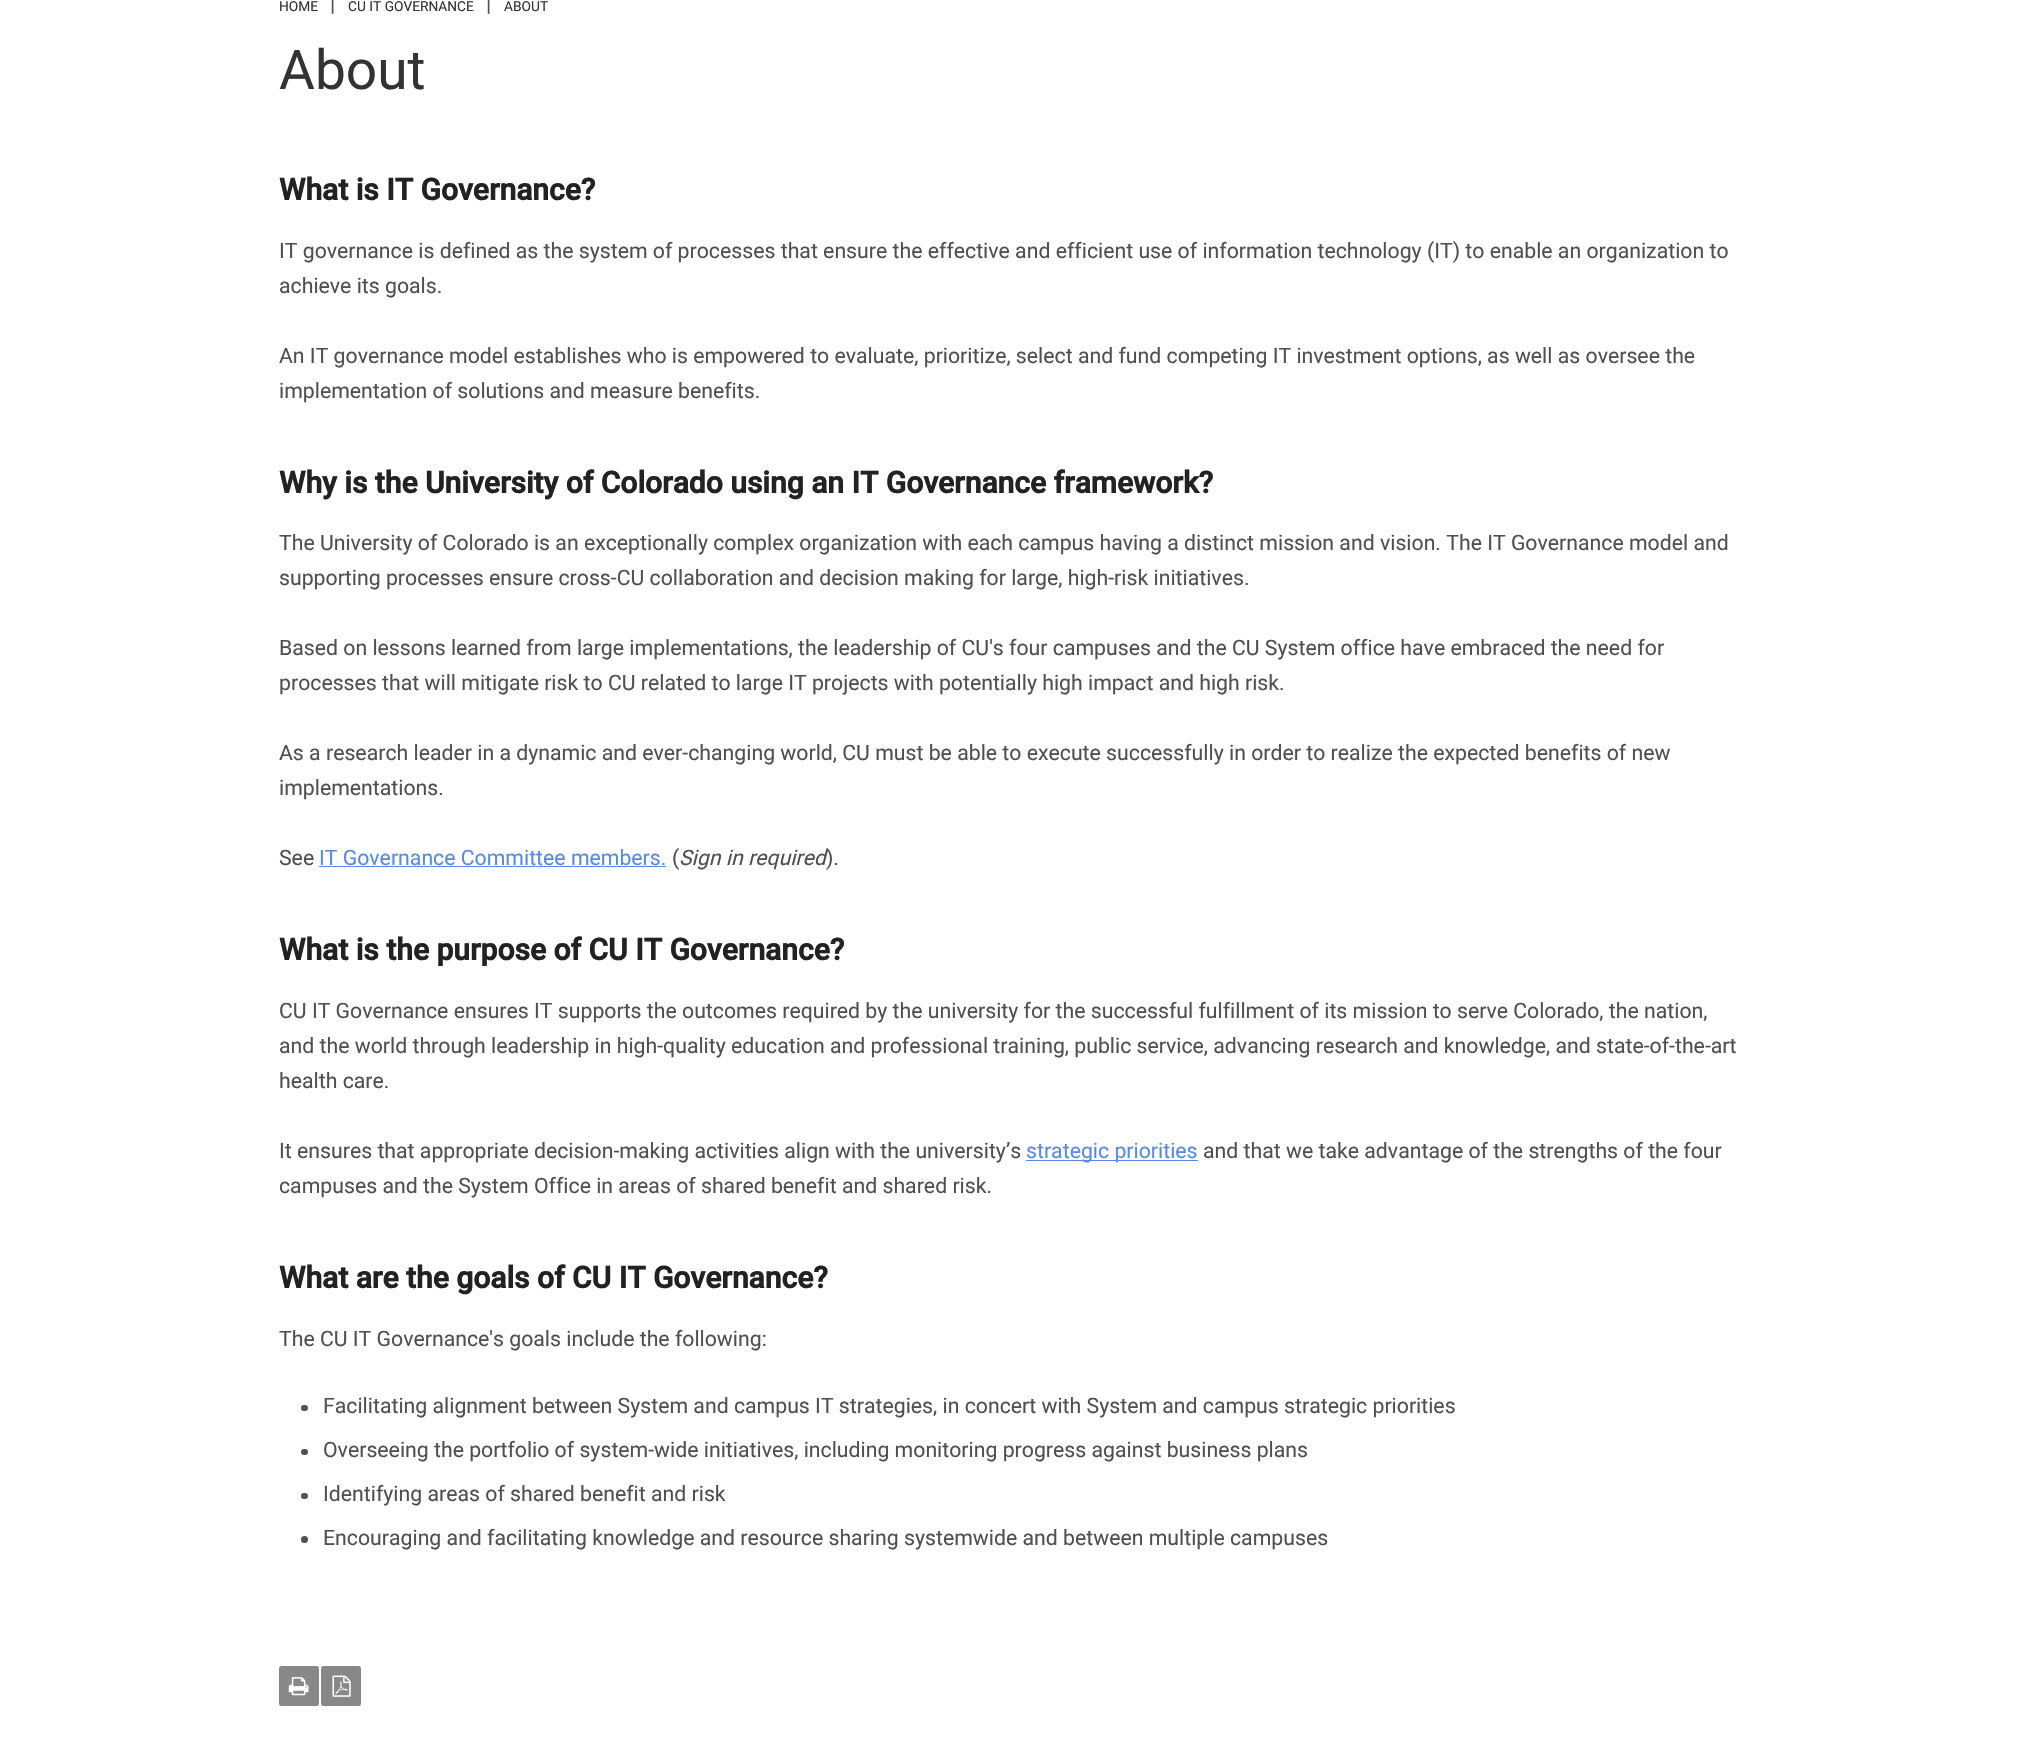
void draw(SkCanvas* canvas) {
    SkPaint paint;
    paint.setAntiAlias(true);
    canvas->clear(0xFFFFFFFF);
    SkFont font1(fontMgr->matchFamilyStyle("Roboto", SkFontStyle::Normal()), 13.75f);
    font1.setSubpixel(true);
    paint.setColor(0xFF333333);
    canvas->drawString("HOME", 279, 11, font1, paint);
    SkFont font2(fontMgr->matchFamilyStyle("Roboto", SkFontStyle::Normal()), 21.25f);
    font2.setSubpixel(true);
    paint.setColor(0xFF505050);
    canvas->drawString("|", 330, 11, font2, paint);
    paint.setColor(0xFF333333);
    canvas->drawString("CU IT GOVERNANCE", 348, 11, font1, paint);
    paint.setColor(0xFF505050);
    canvas->drawString("|", 486, 11, font2, paint);
    paint.setColor(0xFF333333);
    canvas->drawString("ABOUT", 504, 11, font1, paint);
    SkFont font3(fontMgr->matchFamilyStyle("Roboto", SkFontStyle::Normal()), 55);
    font3.setSubpixel(true);
    canvas->drawString("About", 279, 89, font3, paint);
    SkFont font4(fontMgr->matchFamilyStyle("Roboto", SkFontStyle::Bold()), 30);
    font4.setSubpixel(true);
    paint.setColor(0xFF222222);
    canvas->drawString("What is IT Governance?", 279, 200, font4, paint);
    paint.setColor(0xFF505050);
    canvas->drawString("IT governance is defined as the system of processes that ensure the effective and efficient use of information technology (IT) to enable an organization to", 279, 258, font2, paint);
    canvas->drawString("achieve its goals.", 279, 293, font2, paint);
    canvas->drawString("An IT governance model establishes who is empowered to evaluate, prioritize, select and fund competing IT investment options, as well as oversee the", 279, 363, font2, paint);
    canvas->drawString("implementation of solutions and measure benefits.", 279, 398, font2, paint);
    paint.setColor(0xFF222222);
    canvas->drawString("Why is the University of Colorado using an IT Governance framework?", 279, 493, font4, paint);
    paint.setColor(0xFF505050);
    canvas->drawString("The University of Colorado is an exceptionally complex organization with each campus having a distinct mission and vision. The IT Governance model and", 279, 550, font2, paint);
    canvas->drawString("supporting processes ensure cross-CU collaboration and decision making for large, high-risk initiatives.", 279, 585, font2, paint);
    canvas->drawString("Based on lessons learned from large implementations, the leadership of CU's four campuses and the CU System office have embraced the need for", 279, 655, font2, paint);
    canvas->drawString("processes that will mitigate risk to CU related to large IT projects with potentially high impact and high risk.", 279, 690, font2, paint);
    canvas->drawString("As a research leader in a dynamic and ever-changing world, CU must be able to execute successfully in order to realize the expected benefits of new", 279, 760, font2, paint);
    canvas->drawString("implementations.", 279, 795, font2, paint);
    canvas->drawString("See", 279, 865, font2, paint);
    paint.setColor(0xFF578AE8);
    canvas->drawString("IT Governance Committee members.", 319, 865, font2, paint);
    canvas->drawRect(SkRect::MakeXYWH(319, 866, 347, 1), paint);
    paint.setColor(0xFF505050);
    canvas->drawString("(", 672, 865, font2, paint);
    SkFont font5(fontMgr->matchFamilyStyle("Roboto", SkFontStyle::Italic()), 21.25f);
    font5.setSubpixel(true);
    canvas->drawString("Sign in required", 679, 865, font5, paint);
    canvas->drawString(").", 826, 865, font2, paint);
    paint.setColor(0xFF222222);
    canvas->drawString("What is the purpose of CU IT Governance?", 279, 960, font4, paint);
    paint.setColor(0xFF505050);
    canvas->drawString("CU IT Governance ensures IT supports the outcomes required by the university for the successful fulfillment of its mission to serve Colorado, the nation,", 279, 1018, font2, paint);
    canvas->drawString("and the world through leadership in high-quality education and professional training, public service, advancing research and knowledge, and state-of-the-art", 279, 1053, font2, paint);
    canvas->drawString("health care.", 279, 1088, font2, paint);
    canvas->drawString("It ensures that appropriate decision-making activities align with the university’s", 279, 1158, font2, paint);
    paint.setColor(0xFF578AE8);
    canvas->drawRect(SkRect::MakeXYWH(1026, 1160, 172, 1), paint);
    canvas->drawString("strategic priorities", 1026, 1158, font2, paint);
    paint.setColor(0xFF505050);
    canvas->drawString("and that we take advantage of the strengths of the four", 1203, 1158, font2, paint);
    canvas->drawString("campuses and the System Office in areas of shared benefit and shared risk.", 279, 1193, font2, paint);
    paint.setColor(0xFF222222);
    canvas->drawString("What are the goals of CU IT Governance?", 279, 1288, font4, paint);
    paint.setColor(0xFF505050);
    canvas->drawString("The CU IT Governance's goals include the following:", 279, 1346, font2, paint);
    canvas->drawRoundRect(SkRect::MakeXYWH(301, 1405, 7, 6), 3, 3, paint);
    canvas->drawString("Facilitating alignment between System and campus IT strategies, in concert with System and campus strategic priorities", 323, 1413, font2, paint);
    canvas->drawRoundRect(SkRect::MakeXYWH(301, 1449, 7, 6), 3, 3, paint);
    canvas->drawString("Overseeing the portfolio of system-wide initiatives, including monitoring progress against business plans", 323, 1457, font2, paint);
    canvas->drawRoundRect(SkRect::MakeXYWH(301, 1493, 7, 6), 3, 3, paint);
    canvas->drawString("Identifying areas of shared benefit and risk", 323, 1501, font2, paint);
    canvas->drawCircle(304.5f, 1539.5f, 3.5f, paint);
    canvas->drawString("Encouraging and facilitating knowledge and resource sharing systemwide and between multiple campuses", 323, 1545, font2, paint);
    paint.setColor(0xFF888888);
    canvas->drawRoundRect(SkRect::MakeXYWH(279, 1666, 40, 40), 2.5f, 2.5f, paint);
    canvas->drawImageRect(SkImages::DeferredFromEncodedData(SkData::MakeFromFileName("img1.png")), SkRect::MakeXYWH(288, 1677, 21, 19), SkSamplingOptions());
    canvas->drawRoundRect(SkRect::MakeXYWH(321, 1666, 40, 40), 2.5f, 2.5f, paint);
    canvas->drawImageRect(SkImages::DeferredFromEncodedData(SkData::MakeFromFileName("img2.png")), SkRect::MakeXYWH(332, 1675, 19, 22), SkSamplingOptions());
}
